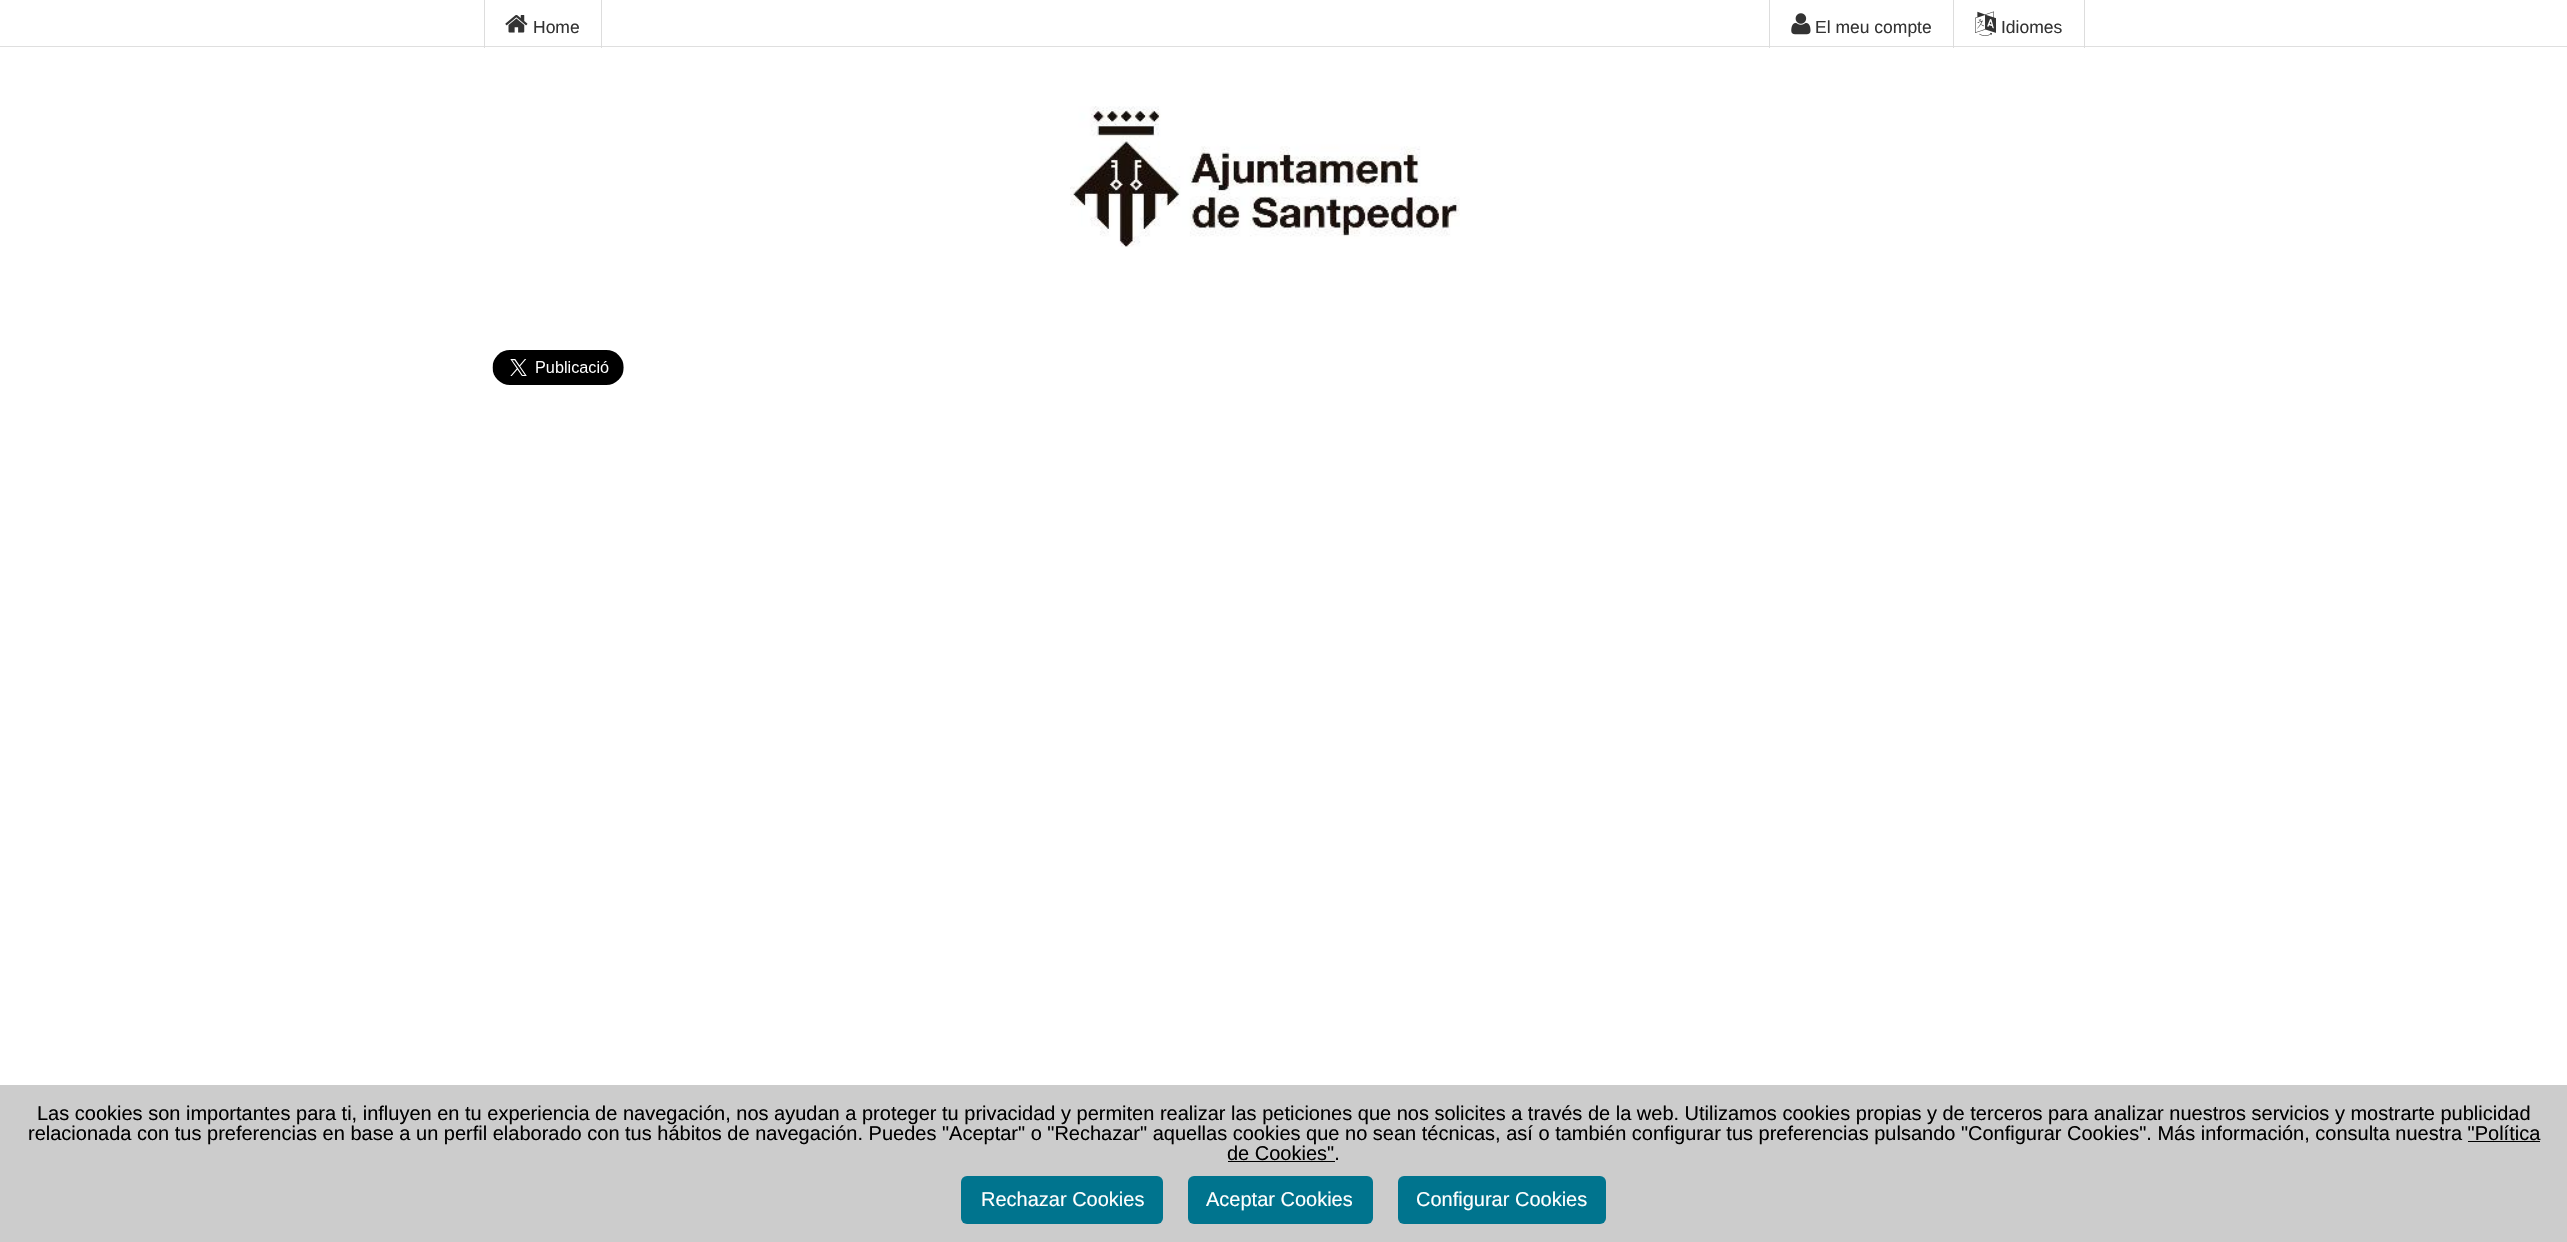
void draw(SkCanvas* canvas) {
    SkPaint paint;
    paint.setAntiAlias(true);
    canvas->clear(0xFFFFFFFF);
    paint.setColor(0xFFDFDFDF);
    canvas->drawRect(SkRect::MakeXYWH(0, 46, 2567, 1), paint);
    paint.setColor(0xFFDDDDDD);
    canvas->drawRect(SkRect::MakeXYWH(2084, 0, 1, 48), paint);
    canvas->drawRect(SkRect::MakeXYWH(601, 0, 1, 48), paint);
    canvas->drawRect(SkRect::MakeXYWH(484, 0, 1, 48), paint);
    canvas->drawImageRect(SkImages::DeferredFromEncodedData(SkData::MakeFromFileName("img1.png")), SkRect::MakeXYWH(505, 15, 23, 18), SkSamplingOptions());
    SkFont font1(fontMgr->matchFamilyStyle("Liberation Sans", SkFontStyle::Normal()), 17.5f);
    font1.setSubpixel(true);
    paint.setColor(0xFF333333);
    canvas->drawString("Home", 533, 33, font1, paint);
    paint.setColor(0xFFDDDDDD);
    canvas->drawRect(SkRect::MakeXYWH(1769, 0, 1, 48), paint);
    canvas->drawImageRect(SkImages::DeferredFromEncodedData(SkData::MakeFromFileName("img2.png")), SkRect::MakeXYWH(1791, 13, 20, 22), SkSamplingOptions());
    paint.setColor(0xFF333333);
    canvas->drawString("El meu compte", 1815, 33, font1, paint);
    paint.setColor(0xFFDDDDDD);
    canvas->drawRect(SkRect::MakeXYWH(1953, 0, 1, 48), paint);
    canvas->drawImageRect(SkImages::DeferredFromEncodedData(SkData::MakeFromFileName("img3.png")), SkRect::MakeXYWH(1975, 11, 21, 25), SkSamplingOptions());
    paint.setColor(0xFF333333);
    canvas->drawString("Idiomes", 2001, 33, font1, paint);
    canvas->drawImageRect(SkImages::DeferredFromEncodedData(SkData::MakeFromFileName("img4.png")), SkRect::MakeXYWH(1070, 106, 390, 141), SkSamplingOptions());
    canvas->drawImageRect(SkImages::DeferredFromEncodedData(SkData::MakeFromFileName("img5.png")), SkRect::MakeXYWH(492, 350, 132, 35), SkSamplingOptions());
    paint.setColor(0xFFCCCCCC);
    canvas->drawRect(SkRect::MakeXYWH(0, 1085, 2567, 157), paint);
    SkFont font2(fontMgr->matchFamilyStyle("Liberation Sans", SkFontStyle::Normal()), 20);
    font2.setSubpixel(true);
    paint.setColor(0xFF000000);
    canvas->drawString("Las cookies son importantes para ti, influyen en tu experiencia de navegación, nos ayudan a proteger tu privacidad y permiten realizar las peticiones que nos solicites a través de la web. Utilizamos cookies propias y de terceros para analizar nuestros servicios y mostrarte publicidad", 37, 1120, font2, paint);
    canvas->drawString("relacionada con tus preferencias en base a un perfil elaborado con tus hábitos de navegación. Puedes \"Aceptar\" o \"Rechazar\" aquellas cookies que no sean técnicas, así o también configurar tus preferencias pulsando \"Configurar Cookies\". Más información, consulta nuestra \"Política", 28, 1140, font2, paint);
    canvas->drawString("de Cookies\".", 1227, 1160, font2, paint);
    canvas->drawRect(SkRect::MakeXYWH(2468, 1141, 72, 1), paint);
    canvas->drawRect(SkRect::MakeXYWH(1228, 1161, 107, 1), paint);
    paint.setColor(0xFF00748E);
    canvas->drawRoundRect(SkRect::MakeXYWH(961, 1176, 202, 48), 6, 6, paint);
    paint.setColor(0xFFFFFFFF);
    canvas->drawString("Rechazar Cookies", 981, 1206, font2, paint);
    paint.setColor(0xFF00748E);
    canvas->drawRoundRect(SkRect::MakeXYWH(1188, 1176, 185, 48), 6, 6, paint);
    paint.setColor(0xFFFFFFFF);
    canvas->drawString("Aceptar Cookies", 1206, 1206, font2, paint);
    paint.setColor(0xFF00748E);
    canvas->drawRoundRect(SkRect::MakeXYWH(1398, 1176, 208, 48), 6, 6, paint);
    paint.setColor(0xFFFFFFFF);
    canvas->drawString("Configurar Cookies", 1416, 1206, font2, paint);
}
